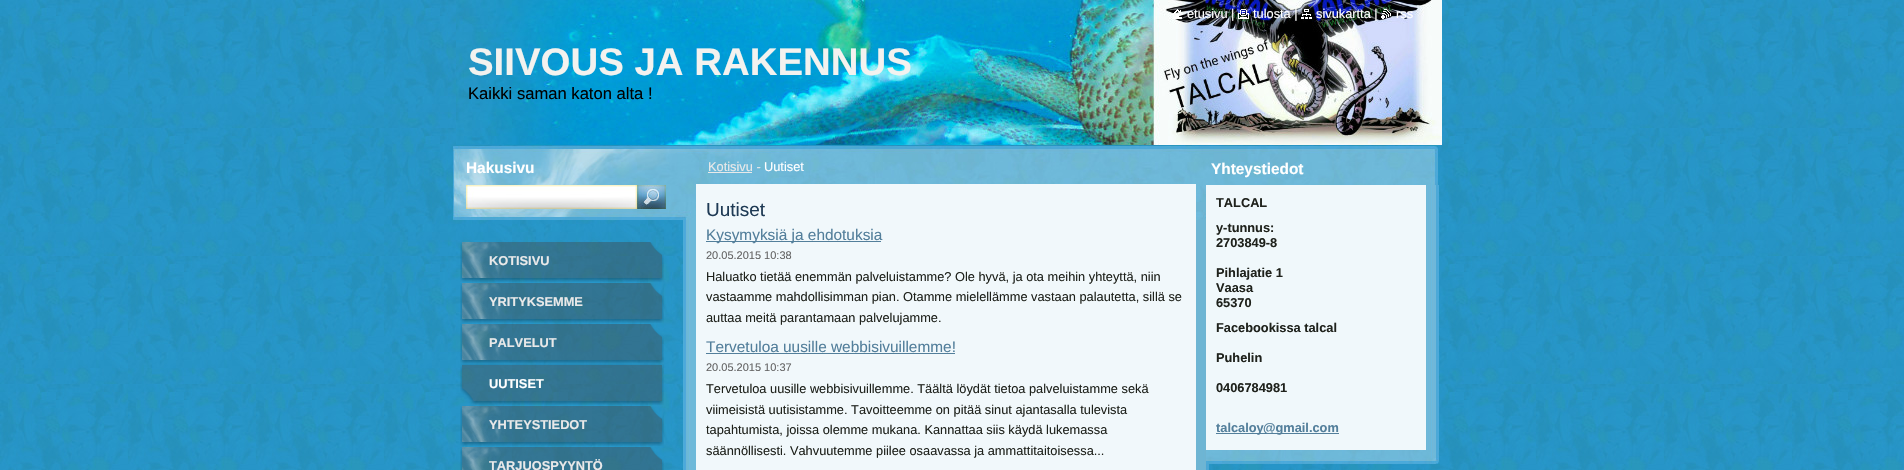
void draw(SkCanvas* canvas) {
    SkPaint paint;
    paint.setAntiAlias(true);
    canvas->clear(0xFFFFFFFF);
    canvas->drawImageRect(SkImages::DeferredFromEncodedData(SkData::MakeFromFileName("img1.png")), SkRect::MakeXYWH(0, 0, 1904, 470), SkSamplingOptions());
    canvas->drawImageRect(SkImages::DeferredFromEncodedData(SkData::MakeFromFileName("img6.png")), SkRect::MakeXYWH(456, 0, 986, 145), SkSamplingOptions());
    canvas->drawImageRect(SkImages::DeferredFromEncodedData(SkData::MakeFromFileName("img2.png")), SkRect::MakeXYWH(1173, 9, 10, 10), SkSamplingOptions());
    SkFont font1(fontMgr->matchFamilyStyle("Liberation Sans", SkFontStyle::Normal()), 12.8f);
    font1.setSubpixel(true);
    paint.setColor(0xFFFFFFFF);
    canvas->drawString("etusivu |", 1187, 18, font1, paint);
    canvas->drawImageRect(SkImages::DeferredFromEncodedData(SkData::MakeFromFileName("img3.png")), SkRect::MakeXYWH(1238, 9, 11, 10), SkSamplingOptions());
    canvas->drawString("tulosta |", 1253, 18, font1, paint);
    canvas->drawImageRect(SkImages::DeferredFromEncodedData(SkData::MakeFromFileName("img4.png")), SkRect::MakeXYWH(1301, 9, 11, 10), SkSamplingOptions());
    canvas->drawString("sivukartta |", 1316, 18, font1, paint);
    canvas->drawImageRect(SkImages::DeferredFromEncodedData(SkData::MakeFromFileName("img5.png")), SkRect::MakeXYWH(1381, 9, 10, 10), SkSamplingOptions());
    canvas->drawString("rss", 1396, 18, font1, paint);
    SkFont font2(fontMgr->matchFamilyStyle("Liberation Sans", SkFontStyle::Bold()), 38.4f);
    font2.setSubpixel(true);
    paint.setColor(0xFFF3F2EF);
    canvas->drawString("SIIVOUS JA RAKENNUS", 468, 75, font2, paint);
    SkFont font3(fontMgr->matchFamilyStyle("Liberation Sans", SkFontStyle::Normal()), 16.6f);
    font3.setSubpixel(true);
    paint.setColor(0xFF000000);
    canvas->drawString("Kaikki saman katon alta !", 468, 99, font3, paint);
    canvas->drawImageRect(SkImages::DeferredFromEncodedData(SkData::MakeFromFileName("img7.png")), SkRect::MakeXYWH(453, 146, 985, 74), SkSamplingOptions());
    SkFont font4(fontMgr->matchFamilyStyle("Liberation Sans", SkFontStyle::Bold()), 15.4f);
    font4.setSubpixel(true);
    paint.setColor(0xFFFFFFFF);
    canvas->drawString("Hakusivu", 466, 173, font4, paint);
    canvas->drawImageRect(SkImages::DeferredFromEncodedData(SkData::MakeFromFileName("img8.png")), SkRect::MakeXYWH(466, 185, 171, 24), SkSamplingOptions());
    canvas->drawImageRect(SkImages::DeferredFromEncodedData(SkData::MakeFromFileName("img9.png")), SkRect::MakeXYWH(637, 185, 29, 24), SkSamplingOptions());
    canvas->drawImageRect(SkImages::DeferredFromEncodedData(SkData::MakeFromFileName("img10.png")), SkRect::MakeXYWH(683, 220, 526, 250), SkSamplingOptions());
    canvas->drawImageRect(SkImages::DeferredFromEncodedData(SkData::MakeFromFileName("img11.png")), SkRect::MakeXYWH(683, 146, 526, 74), SkSamplingOptions());
    paint.setColor(0xFFE9E9E9);
    canvas->drawString("Kotisivu -", 708, 171, font1, paint);
    canvas->drawRect(SkRect::MakeXYWH(708, 172, 44, 1), paint);
    paint.setColor(0xFFFFFFFF);
    canvas->drawString("Uutiset", 764, 171, font1, paint);
    paint.setColor(0xFFF1F8FB);
    canvas->drawRect(SkRect::MakeXYWH(696, 184, 500, 286), paint);
    SkFont font5(fontMgr->matchFamilyStyle("Liberation Sans", SkFontStyle::Normal()), 19);
    font5.setSubpixel(true);
    paint.setColor(0xFF1F3B55);
    canvas->drawString("Uutiset", 706, 216, font5, paint);
    paint.setColor(0xFF537F9B);
    canvas->drawRect(SkRect::MakeXYWH(706, 241, 175, 1), paint);
    SkFont font6(fontMgr->matchFamilyStyle("Liberation Sans", SkFontStyle::Normal()), 15.4f);
    font6.setSubpixel(true);
    canvas->drawString("Kysymyksiä ja ehdotuksia", 706, 240, font6, paint);
    SkFont font7(fontMgr->matchFamilyStyle("Liberation Sans", SkFontStyle::Normal()), 11);
    font7.setSubpixel(true);
    paint.setColor(0xFF646464);
    canvas->drawString("20.05.2015 10:38", 706, 259, font7, paint);
    paint.setColor(0xFF1F221C);
    canvas->drawString("Haluatko tietää enemmän palveluistamme? Ole hyvä, ja ota meihin yhteyttä, niin", 706, 281, font1, paint);
    canvas->drawString("vastaamme mahdollisimman pian. Otamme mielellämme vastaan palautetta, sillä se", 706, 301, font1, paint);
    canvas->drawString("auttaa meitä parantamaan palvelujamme.", 706, 322, font1, paint);
    paint.setColor(0xFF537F9B);
    canvas->drawString("Tervetuloa uusille webbisivuillemme!", 706, 352, font6, paint);
    canvas->drawRect(SkRect::MakeXYWH(706, 353, 249, 1), paint);
    paint.setColor(0xFF646464);
    canvas->drawString("20.05.2015 10:37", 706, 371, font7, paint);
    paint.setColor(0xFF1F221C);
    canvas->drawString("Tervetuloa uusille webbisivuillemme. Täältä löydät tietoa palveluistamme sekä", 706, 393, font1, paint);
    canvas->drawString("viimeisistä uutisistamme. Tavoitteemme on pitää sinut ajantasalla tulevista", 706, 414, font1, paint);
    canvas->drawString("tapahtumista, joissa olemme mukana. Kannattaa siis käydä lukemassa", 706, 434, font1, paint);
    canvas->drawString("säännöllisesti. Vahvuutemme piilee osaavassa ja ammattitaitoisessa...", 706, 455, font1, paint);
    paint.setColor(0xFFFFFFFF);
    canvas->drawString("Yhteystiedot", 1211, 174, font4, paint);
    canvas->drawImageRect(SkImages::DeferredFromEncodedData(SkData::MakeFromFileName("img12.png")), SkRect::MakeXYWH(1206, 185, 233, 265), SkSamplingOptions());
    SkFont font8(fontMgr->matchFamilyStyle("Liberation Sans", SkFontStyle::Bold()), 12.8f);
    font8.setSubpixel(true);
    paint.setColor(0xFF1F221C);
    canvas->drawString("TALCAL", 1216, 207, font8, paint);
    canvas->drawString("y-tunnus:", 1216, 232, font8, paint);
    canvas->drawString("2703849-8", 1216, 247, font8, paint);
    canvas->drawString("Pihlajatie 1", 1216, 277, font8, paint);
    canvas->drawString("Vaasa", 1216, 292, font8, paint);
    canvas->drawString("65370", 1216, 307, font8, paint);
    canvas->drawString("Facebookissa talcal", 1216, 332, font8, paint);
    canvas->drawString("Puhelin", 1216, 362, font8, paint);
    canvas->drawString("0406784981", 1216, 392, font8, paint);
    paint.setColor(0xFF537F9B);
    canvas->drawRect(SkRect::MakeXYWH(1216, 433, 47, 1), paint);
    canvas->drawString("talcaloy", 1216, 432, font8, paint);
    canvas->drawRect(SkRect::MakeXYWH(1263, 433, 76, 1), paint);
    canvas->drawString("@gmail.com", 1263, 432, font8, paint);
    canvas->drawImageRect(SkImages::DeferredFromEncodedData(SkData::MakeFromFileName("img13.png")), SkRect::MakeXYWH(1206, 450, 233, 14), SkSamplingOptions());
    canvas->drawImageRect(SkImages::DeferredFromEncodedData(SkData::MakeFromFileName("img14.png")), SkRect::MakeXYWH(460, 242, 204, 40), SkSamplingOptions());
    paint.setColor(0xFFE9E9E9);
    canvas->drawString("KOTISIVU", 489, 265, font8, paint);
    canvas->drawImageRect(SkImages::DeferredFromEncodedData(SkData::MakeFromFileName("img15.png")), SkRect::MakeXYWH(460, 283, 204, 40), SkSamplingOptions());
    canvas->drawString("YRITYKSEMME", 489, 306, font8, paint);
    canvas->drawImageRect(SkImages::DeferredFromEncodedData(SkData::MakeFromFileName("img16.png")), SkRect::MakeXYWH(460, 324, 204, 40), SkSamplingOptions());
    canvas->drawString("PALVELUT", 489, 347, font8, paint);
    canvas->drawImageRect(SkImages::DeferredFromEncodedData(SkData::MakeFromFileName("img17.png")), SkRect::MakeXYWH(460, 364, 204, 41), SkSamplingOptions());
    paint.setColor(0xFFFFFFFF);
    canvas->drawString("UUTISET", 489, 388, font8, paint);
    canvas->drawImageRect(SkImages::DeferredFromEncodedData(SkData::MakeFromFileName("img18.png")), SkRect::MakeXYWH(460, 406, 204, 40), SkSamplingOptions());
    paint.setColor(0xFFE9E9E9);
    canvas->drawString("YHTEYSTIEDOT", 489, 429, font8, paint);
    canvas->drawImageRect(SkImages::DeferredFromEncodedData(SkData::MakeFromFileName("img19.png")), SkRect::MakeXYWH(460, 447, 204, 23), SkSamplingOptions());
    canvas->drawString("TARJUOSPYYNTÖ", 489, 470, font8, paint);
}
